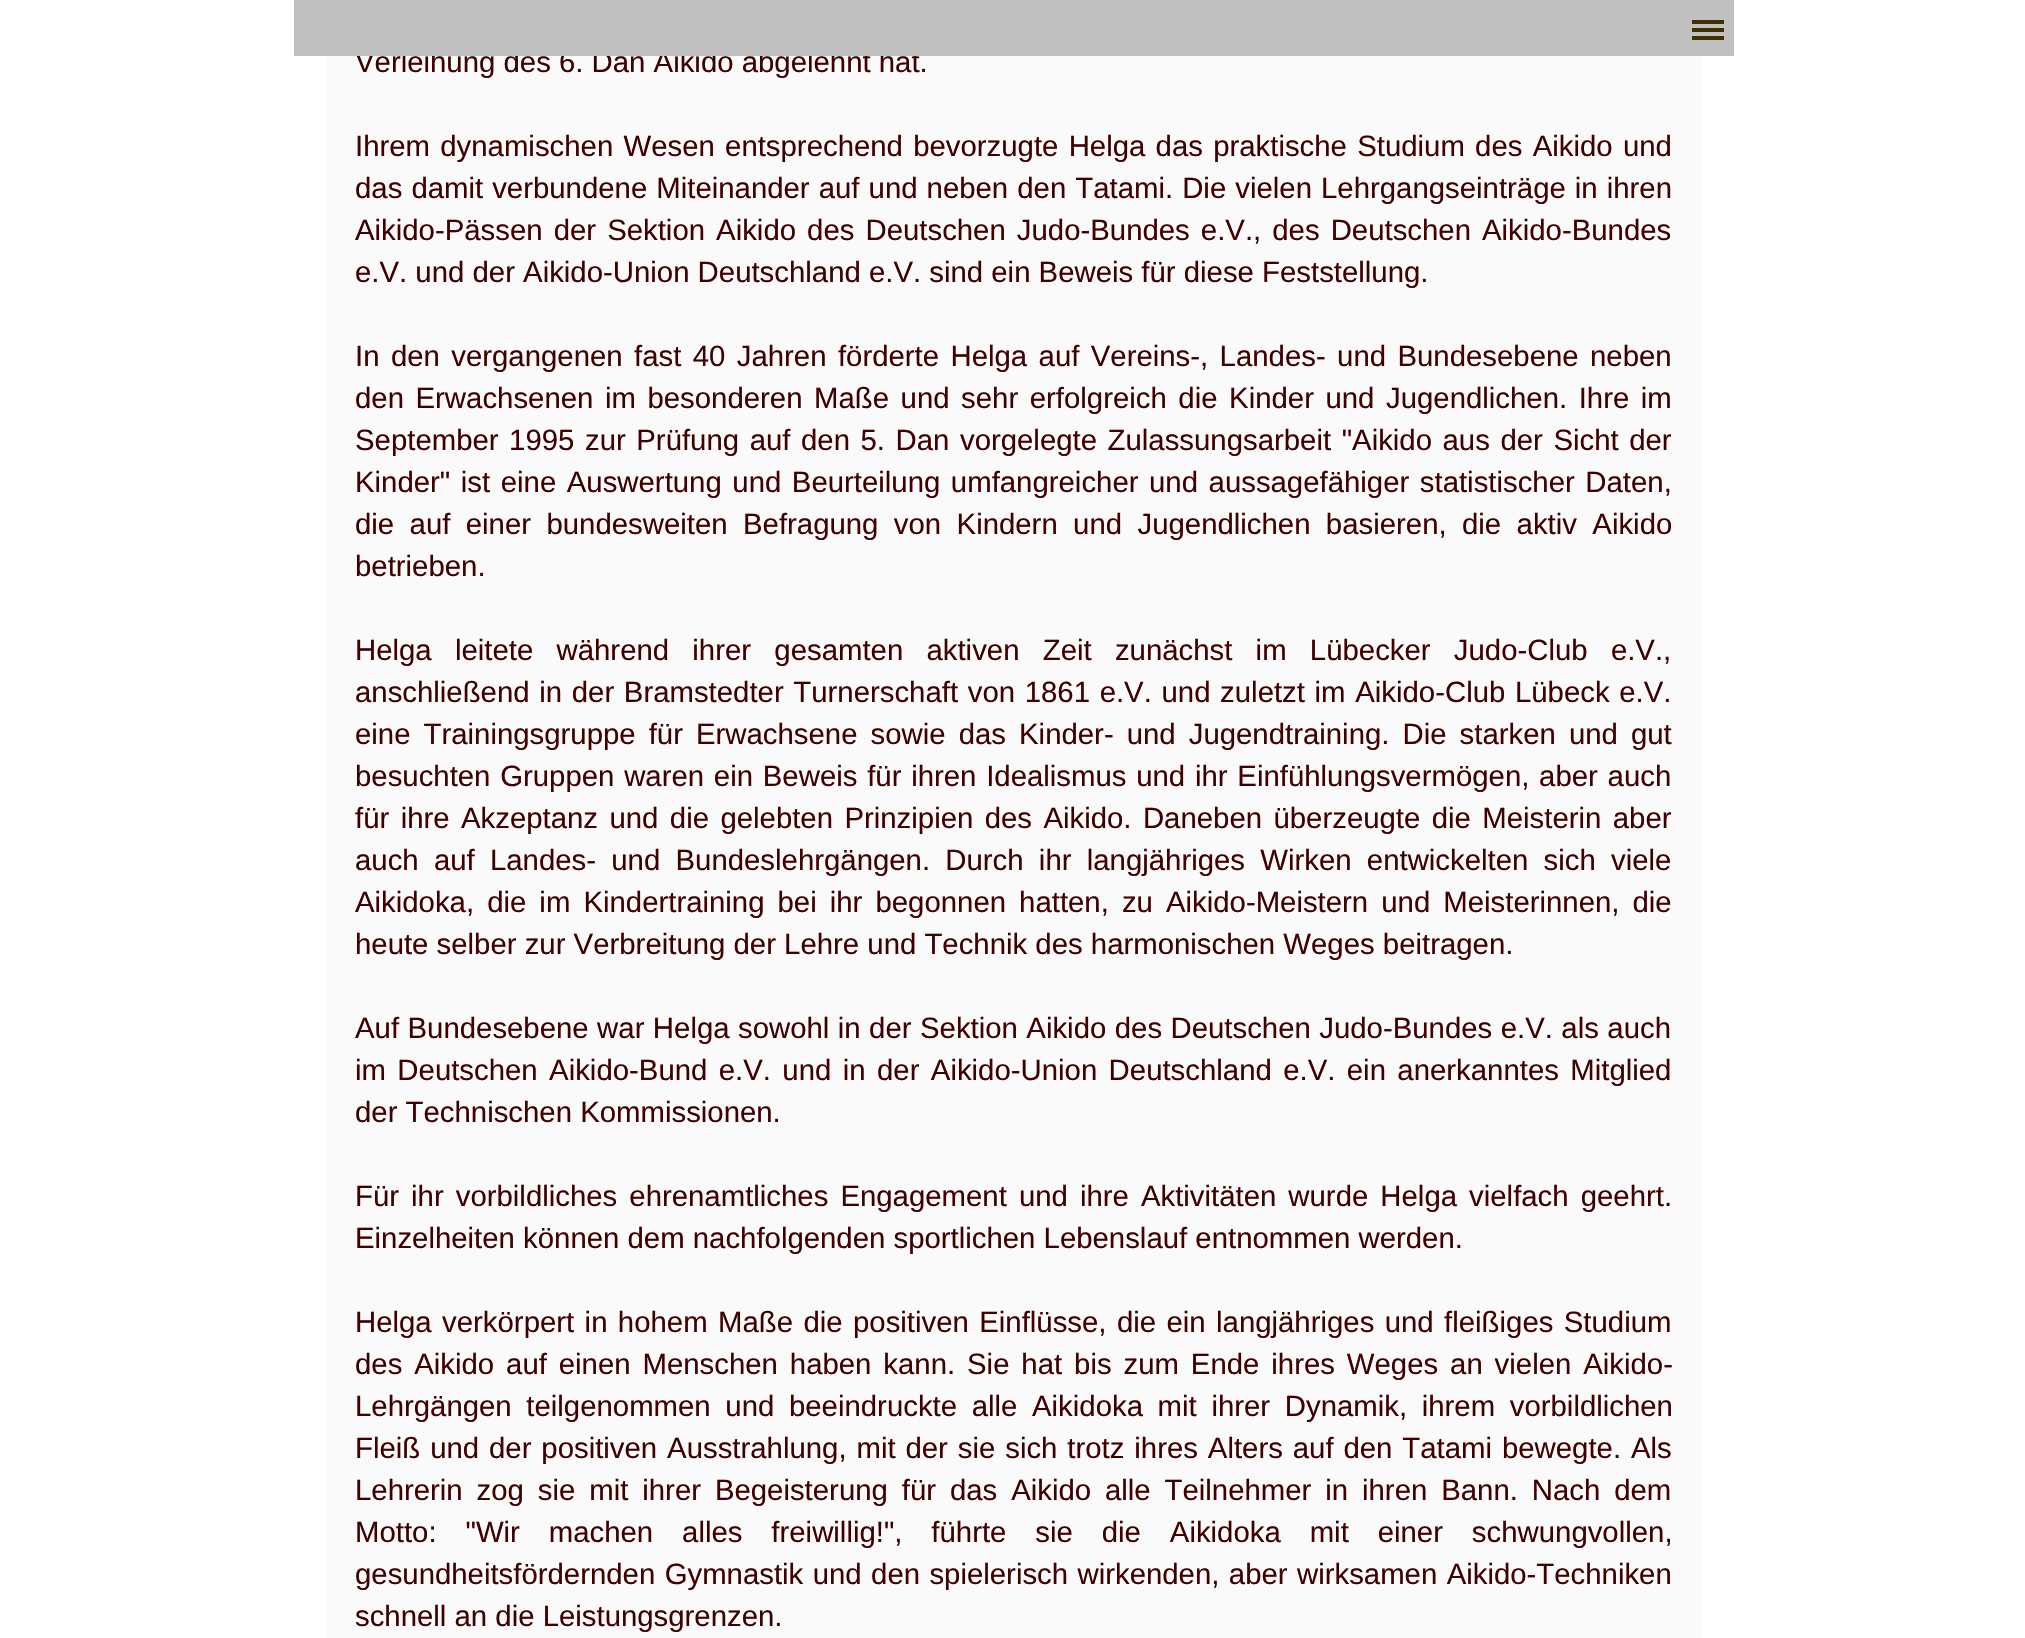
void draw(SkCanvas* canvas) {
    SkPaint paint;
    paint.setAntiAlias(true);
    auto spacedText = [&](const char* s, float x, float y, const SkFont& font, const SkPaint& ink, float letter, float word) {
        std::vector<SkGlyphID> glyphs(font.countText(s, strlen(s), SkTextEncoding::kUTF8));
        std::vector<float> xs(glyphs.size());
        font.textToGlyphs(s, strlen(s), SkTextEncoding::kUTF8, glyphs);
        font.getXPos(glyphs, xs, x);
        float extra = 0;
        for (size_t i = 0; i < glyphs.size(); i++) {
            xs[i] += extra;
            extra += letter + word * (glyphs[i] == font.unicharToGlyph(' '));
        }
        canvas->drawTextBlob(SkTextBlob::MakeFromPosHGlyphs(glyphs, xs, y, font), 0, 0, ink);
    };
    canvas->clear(0xFFFFFFFF);
    paint.setColor(0xFFFAFAFA);
    canvas->drawRect(SkRect::MakeXYWH(326, 56, 1376, 1582), paint);
    SkFont font1(fontMgr->matchFamilyStyle("Liberation Sans", SkFontStyle::Normal()), 29.35f);
    font1.setSubpixel(true);
    paint.setColor(0xFF400000);
    canvas->drawString("Verleihung des 6. Dan Aikido abgelehnt hat.", 355, 72, font1, paint);
    paint.setColor(0xFFC0C0C0);
    canvas->drawRect(SkRect::MakeXYWH(294, 0, 1440, 56), paint);
    paint.setColor(0xFF403000);
    canvas->drawRect(SkRect::MakeXYWH(1692, 20, 32, 4), paint);
    canvas->drawRect(SkRect::MakeXYWH(1692, 28, 32, 4), paint);
    canvas->drawRect(SkRect::MakeXYWH(1692, 36, 32, 4), paint);
    paint.setColor(0xFF400000);
    spacedText("Ihrem dynamischen Wesen entsprechend bevorzugte Helga das praktische Studium des Aikido und", 355, 156, font1, paint, 0, 2.1f);
    spacedText("das damit verbundene Miteinander auf und neben den Tatami. Die vielen Lehrgangseinträge in ihren", 355, 198, font1, paint, 0, 0.9f);
    spacedText("Aikido-Pässen der Sektion Aikido des Deutschen Judo-Bundes e.V., des Deutschen Aikido-Bundes", 355, 240, font1, paint, 0, 2.9f);
    canvas->drawString("e.V. und der Aikido-Union Deutschland e.V. sind ein Beweis für diese Feststellung.", 355, 282, font1, paint);
    spacedText("In den vergangenen fast 40 Jahren förderte Helga auf Vereins-, Landes- und Bundesebene neben", 355, 366, font1, paint, 0, 3.25f);
    spacedText("den Erwachsenen im besonderen Maße und sehr erfolgreich die Kinder und Jugendlichen. Ihre im", 355, 408, font1, paint, 0, 3.4f);
    spacedText("September 1995 zur Prüfung auf den 5. Dan vorgelegte Zulassungsarbeit \"Aikido aus der Sicht der", 355, 450, font1, paint, 0, 2.4f);
    spacedText("Kinder\" ist eine Auswertung und Beurteilung umfangreicher und aussagefähiger statistischer Daten,", 355, 492, font1, paint, 0, 2.4f);
    spacedText("die auf einer bundesweiten Befragung von Kindern und Jugendlichen basieren, die aktiv Aikido", 355, 534, font1, paint, 0, 7.25f);
    canvas->drawString("betrieben.", 355, 576, font1, paint);
    spacedText("Helga leitete während ihrer gesamten aktiven Zeit zunächst im Lübecker Judo-Club e.V.,", 355, 660, font1, paint, 0, 15.1f);
    spacedText("anschließend in der Bramstedter Turnerschaft von 1861 e.V. und zuletzt im Aikido-Club Lübeck e.V.", 355, 702, font1, paint, 0, 1.5f);
    spacedText("eine Trainingsgruppe für Erwachsene sowie das Kinder- und Jugendtraining. Die starken und gut", 355, 744, font1, paint, 0, 4.9f);
    spacedText("besuchten Gruppen waren ein Beweis für ihren Idealismus und ihr Einfühlungsvermögen, aber auch", 355, 786, font1, paint, 0, 1.6f);
    spacedText("für ihre Akzeptanz und die gelebten Prinzipien des Aikido. Daneben überzeugte die Meisterin aber", 355, 828, font1, paint, 0, 3.25f);
    spacedText("auch auf Landes- und Bundeslehrgängen. Durch ihr langjähriges Wirken entwickelten sich viele", 355, 870, font1, paint, 0, 7.1f);
    spacedText("Aikidoka, die im Kindertraining bei ihr begonnen hatten, zu Aikido-Meistern und Meisterinnen, die", 355, 912, font1, paint, 0, 4.9f);
    canvas->drawString("heute selber zur Verbreitung der Lehre und Technik des harmonischen Weges beitragen.", 355, 954, font1, paint);
    spacedText("Auf Bundesebene war Helga sowohl in der Sektion Aikido des Deutschen Judo-Bundes e.V. als auch", 355, 1038, font1, paint, 0, 0.3f);
    spacedText("im Deutschen Aikido-Bund e.V. und in der Aikido-Union Deutschland e.V. ein anerkanntes Mitglied", 355, 1080, font1, paint, 0, 3.25f);
    canvas->drawString("der Technischen Kommissionen.", 355, 1122, font1, paint);
    spacedText("Für ihr vorbildliches ehrenamtliches Engagement und ihre Aktivitäten wurde Helga vielfach geehrt.", 355, 1206, font1, paint, 0, 3.9f);
    canvas->drawString("Einzelheiten können dem nachfolgenden sportlichen Lebenslauf entnommen werden.", 355, 1248, font1, paint);
    spacedText("Helga verkörpert in hohem Maße die positiven Einflüsse, die ein langjähriges und fleißiges Studium", 355, 1332, font1, paint, 0, 2.25f);
    spacedText("des Aikido auf einen Menschen haben kann. Sie hat bis zum Ende ihres Weges an vielen Aikido-", 355, 1374, font1, paint, 0, 3.75f);
    spacedText("Lehrgängen teilgenommen und beeindruckte alle Aikidoka mit ihrer Dynamik, ihrem vorbildlichen", 355, 1416, font1, paint, 0, 6.5f);
    spacedText("Fleiß und der positiven Ausstrahlung, mit der sie sich trotz ihres Alters auf den Tatami bewegte. Als", 355, 1458, font1, paint, 0, 1.75f);
    spacedText("Lehrerin zog sie mit ihrer Begeisterung für das Aikido alle Teilnehmer in ihren Bann. Nach dem", 355, 1500, font1, paint, 0, 5.75f);
    spacedText("Motto: \"Wir machen alles freiwillig!\", führte sie die Aikidoka mit einer schwungvollen,", 355, 1542, font1, paint, 0, 20.75f);
    spacedText("gesundheitsfördernden Gymnastik und den spielerisch wirkenden, aber wirksamen Aikido-Techniken", 355, 1584, font1, paint, 0, 1.25f);
    canvas->drawString("schnell an die Leistungsgrenzen.", 355, 1626, font1, paint);
}
